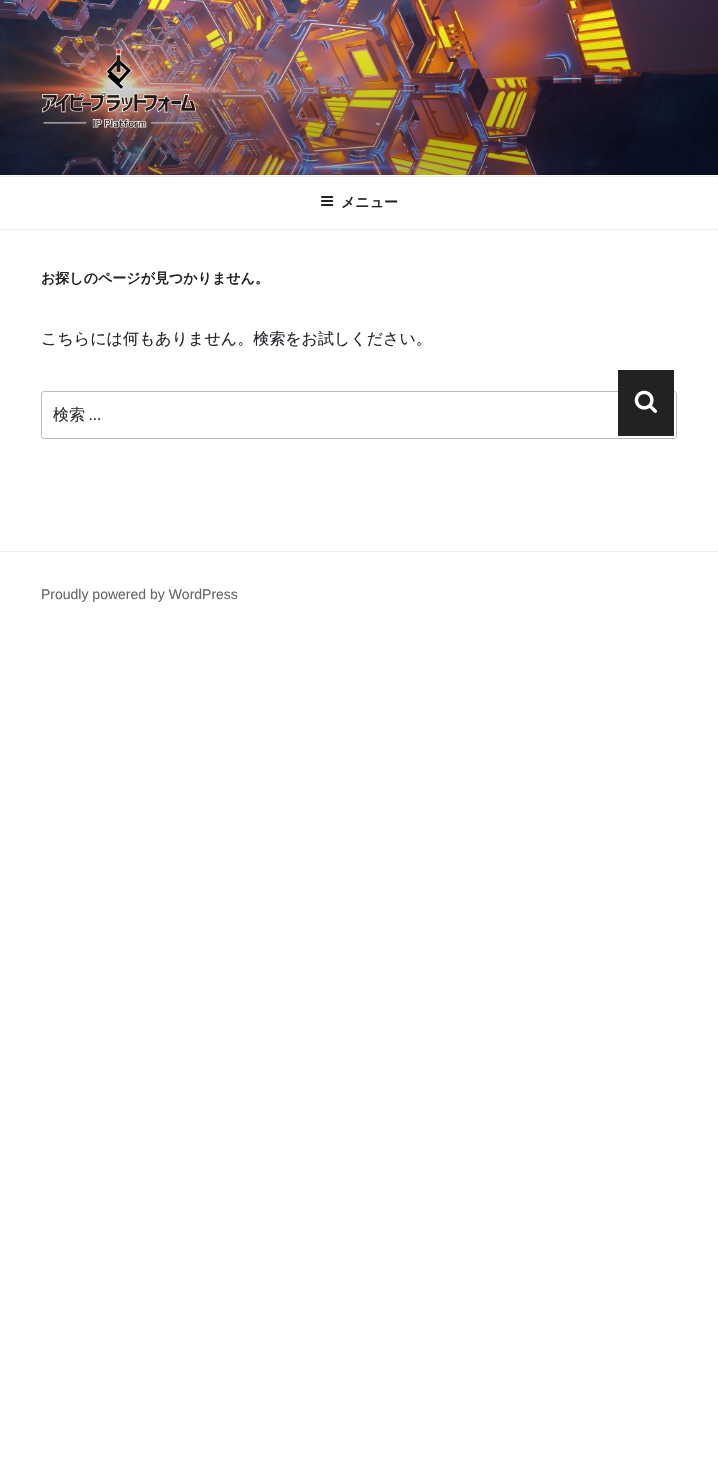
void draw(SkCanvas* canvas) {
    SkPaint paint;
    paint.setAntiAlias(true);
    canvas->clear(0xFFFFFFFF);
    paint.setColor(0xFFFAFAFA);
    canvas->drawRect(SkRect::MakeXYWH(0, 175, 718, 1), paint);
    canvas->drawImageRect(SkImages::DeferredFromEncodedData(SkData::MakeFromFileName("img1.png")), SkRect::MakeXYWH(0, 0, 718, 175), SkSamplingOptions());
    canvas->drawImageRect(SkImages::DeferredFromEncodedData(SkData::MakeFromFileName("img2.png")), SkRect::MakeXYWH(42, 48, 155, 80), SkSamplingOptions());
    paint.setColor(0xFFEEEEEE);
    canvas->drawRect(SkRect::MakeXYWH(0, 176, 718, 1), paint);
    canvas->drawRect(SkRect::MakeXYWH(0, 229, 718, 1), paint);
    canvas->drawImageRect(SkImages::DeferredFromEncodedData(SkData::MakeFromFileName("img3.png")), SkRect::MakeXYWH(321, 196, 13, 10), SkSamplingOptions());
    SkFont font1(fontMgr->matchFamilyStyle("WenQuanYi Zen Hei", SkFontStyle::Bold()), 14);
    font1.setSubpixel(true);
    paint.setColor(0xFF222222);
    canvas->drawString("メニュー", 341, 207, font1, paint);
    canvas->drawString("お探しのページが見つかりません。", 41, 283, font1, paint);
    SkFont font2(fontMgr->matchFamilyStyle("WenQuanYi Zen Hei", SkFontStyle(500, SkFontStyle::kNormal_Width, SkFontStyle::kUpright_Slant)), 16);
    font2.setSubpixel(true);
    paint.setColor(0xFF212529);
    canvas->drawString("こちらには何もありません。検索をお試しください。", 41, 344, font2, paint);
    paint.setStyle(SkPaint::kStroke_Style);
    paint.setStrokeWidth(1);
    paint.setColor(0xFFBBBBBB);
    canvas->drawRoundRect(SkRect::MakeXYWH(41.5f, 391.5f, 635, 47), 2.5f, 2.5f, paint);
    paint.setStyle(SkPaint::kFill_Style);
    paint.setColor(0xFF333333);
    canvas->drawString("検索", 53, 420, font2, paint);
    SkFont font3(fontMgr->matchFamilyStyle("Libre Franklin", SkFontStyle::Normal()), 16);
    font3.setSubpixel(true);
    canvas->drawString("…", 89, 420, font3, paint);
    paint.setColor(0xFF222222);
    canvas->drawRect(SkRect::MakeXYWH(618, 370, 56, 66), paint);
    canvas->drawImageRect(SkImages::DeferredFromEncodedData(SkData::MakeFromFileName("img4.png")), SkRect::MakeXYWH(634, 390, 23, 23), SkSamplingOptions());
    paint.setColor(0xFFEEEEEE);
    canvas->drawRect(SkRect::MakeXYWH(0, 551, 718, 1), paint);
    SkFont font4(fontMgr->matchFamilyStyle("Liberation Sans", SkFontStyle::Normal()), 14);
    font4.setSubpixel(true);
    paint.setColor(0xFF666666);
    canvas->drawString("Proudly powered by WordPress", 41, 599, font4, paint);
}
